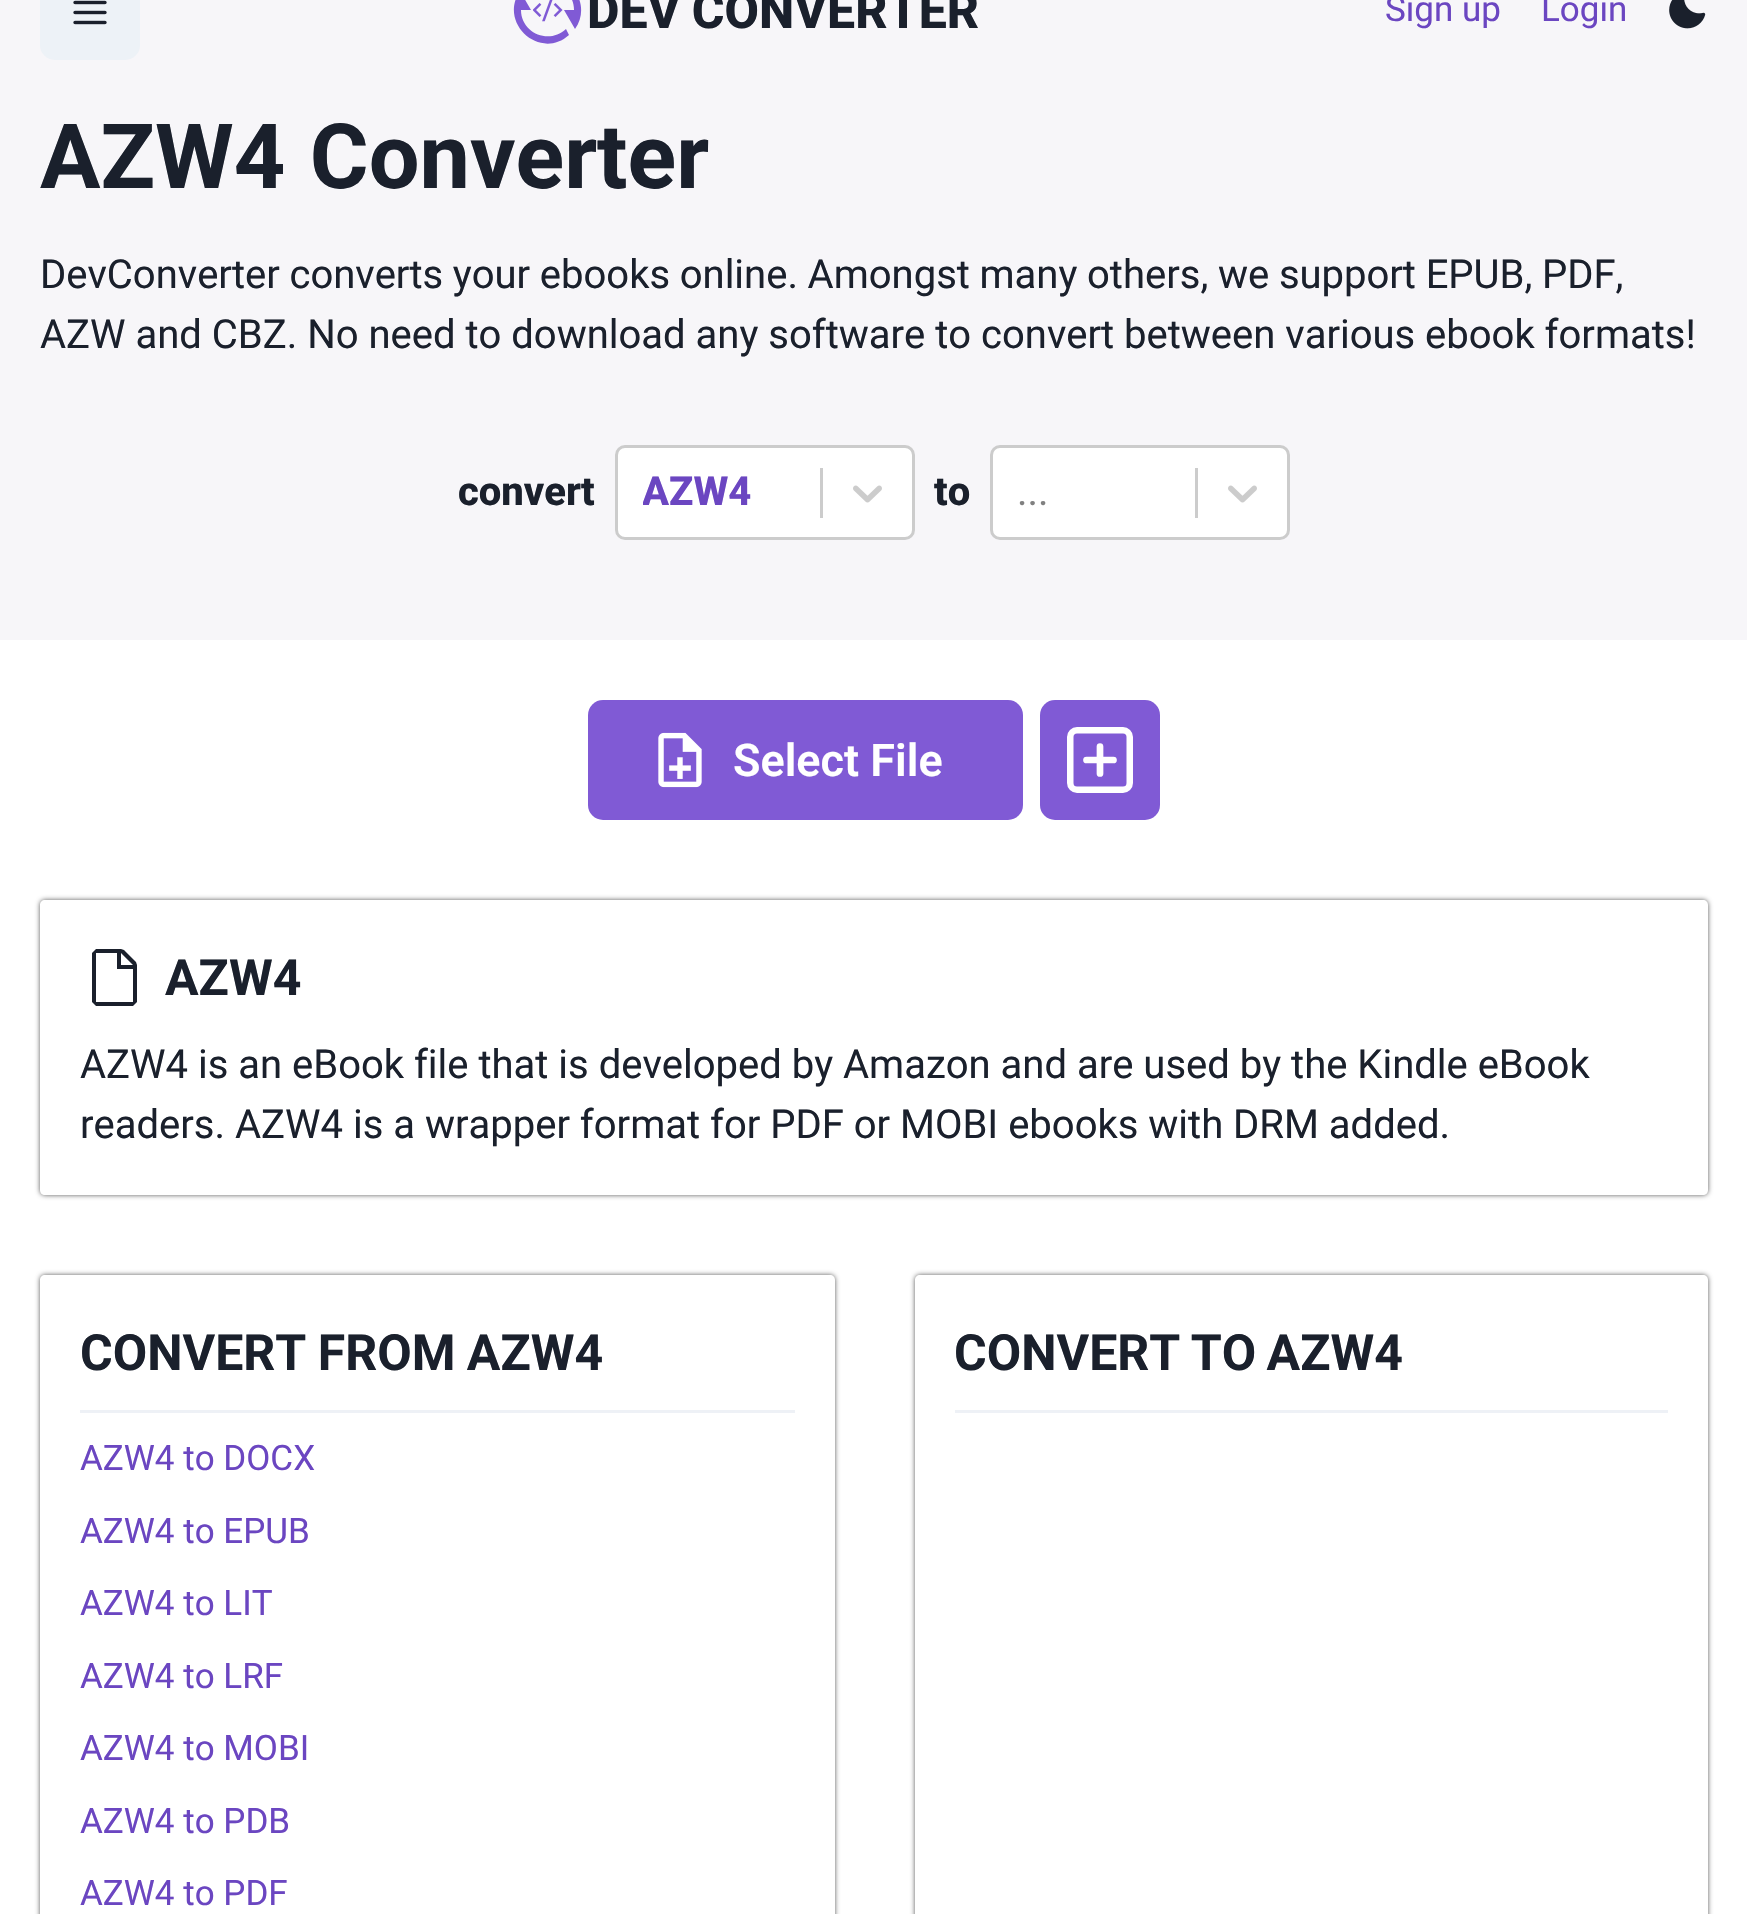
void draw(SkCanvas* canvas) {
    SkPaint paint;
    paint.setAntiAlias(true);
    auto spacedText = [&](const char* s, float x, float y, const SkFont& font, const SkPaint& ink, float letter, float word) {
        std::vector<SkGlyphID> glyphs(font.countText(s, strlen(s), SkTextEncoding::kUTF8));
        std::vector<float> xs(glyphs.size());
        font.textToGlyphs(s, strlen(s), SkTextEncoding::kUTF8, glyphs);
        font.getXPos(glyphs, xs, x);
        float extra = 0;
        for (size_t i = 0; i < glyphs.size(); i++) {
            xs[i] += extra;
            extra += letter + word * (glyphs[i] == font.unicharToGlyph(' '));
        }
        canvas->drawTextBlob(SkTextBlob::MakeFromPosHGlyphs(glyphs, xs, y, font), 0, 0, ink);
    };
    canvas->clear(0xFFFFFFFF);
    paint.setColor(0xFFF7F6F9);
    canvas->drawRect(SkRect::MakeXYWH(0, 0, 1747, 640), paint);
    paint.setColor(0xFFEDF2F7);
    canvas->drawRoundRect(SkRect::MakeXYWH(40, -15, 100, 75), 15, 15, paint);
    canvas->drawImageRect(SkImages::DeferredFromEncodedData(SkData::MakeFromFileName("img1.png")), SkRect::MakeXYWH(73, 0, 34, 25), SkSamplingOptions());
    paint.setColor(0xFF805AD5);
    canvas->drawPath(SkPathBuilder().moveTo(526, -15).cubicTo(555, -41, 597, -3, 575, 29).lineTo(564, 10).lineTo(574, 10).cubicTo(574, -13, 546, -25, 529, -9).close().moveTo(569, 35).cubicTo(540, 61, 498, 23, 520, -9).lineTo(531, 10).lineTo(521, 10).cubicTo(521, 33, 549, 45, 566, 29).close().detach(), paint);
    canvas->drawImageRect(SkImages::DeferredFromEncodedData(SkData::MakeFromFileName("img2.png")), SkRect::MakeXYWH(533, 0, 30, 22), SkSamplingOptions());
    SkFont font1(fontMgr->matchFamilyStyle("Roboto", SkFontStyle(800, SkFontStyle::kNormal_Width, SkFontStyle::kUpright_Slant)), 50);
    font1.setSubpixel(true);
    paint.setColor(0xFF1A202C);
    spacedText("DEV CONVERTER", 587, 28, font1, paint, 0, -1);
    SkFont font2(fontMgr->matchFamilyStyle("Roboto", SkFontStyle::Normal()), 35);
    font2.setSubpixel(true);
    paint.setColor(0xFF6B46C1);
    canvas->drawString("Sign up", 1385, 21, font2, paint);
    canvas->drawString("Login", 1541, 21, font2, paint);
    canvas->drawImageRect(SkImages::DeferredFromEncodedData(SkData::MakeFromFileName("img3.png")), SkRect::MakeXYWH(1669, 0, 37, 29), SkSamplingOptions());
    SkFont font3(fontMgr->matchFamilyStyle("Roboto", SkFontStyle::Bold()), 90);
    font3.setSubpixel(true);
    paint.setColor(0xFF1A202C);
    spacedText("AZW4 Converter", 40, 188, font3, paint, 0, 2);
    SkFont font4(fontMgr->matchFamilyStyle("Roboto", SkFontStyle::Normal()), 40);
    font4.setSubpixel(true);
    spacedText("DevConverter converts your ebooks online. Amongst many others, we support EPUB, PDF,", 40, 288, font4, paint, 0, -0.25f);
    canvas->drawString("AZW and CBZ. No need to download any software to convert between various ebook formats!", 40, 348, font4, paint);
    SkFont font5(fontMgr->matchFamilyStyle("Roboto", SkFontStyle(800, SkFontStyle::kNormal_Width, SkFontStyle::kUpright_Slant)), 40);
    font5.setSubpixel(true);
    canvas->drawString("convert", 458, 505, font5, paint);
    paint.setColor(0xFFFFFFFF);
    canvas->drawRoundRect(SkRect::MakeXYWH(616.5f, 446.5f, 297, 92), 8.5f, 8.5f, paint);
    paint.setStyle(SkPaint::kStroke_Style);
    paint.setStrokeWidth(3);
    paint.setColor(0xFFCCCCCC);
    canvas->drawRoundRect(SkRect::MakeXYWH(616.5f, 446.5f, 297, 92), 8.5f, 8.5f, paint);
    canvas->save();
    canvas->clipRect(SkRect::MakeXYWH(643, 463, 152, 60));
    paint.setStyle(SkPaint::kFill_Style);
    paint.setColor(0xFF6B46C1);
    canvas->drawString("AZW4", 642, 505, font5, paint);
    canvas->restore();
    paint.setColor(0xFFCCCCCC);
    canvas->drawRect(SkRect::MakeXYWH(820, 468, 3, 50), paint);
    canvas->drawImageRect(SkImages::DeferredFromEncodedData(SkData::MakeFromFileName("img4.png")), SkRect::MakeXYWH(853, 485, 29, 18), SkSamplingOptions());
    paint.setColor(0xFF1A202C);
    canvas->drawString("to", 934, 505, font5, paint);
    paint.setColor(0xFFFFFFFF);
    canvas->drawRoundRect(SkRect::MakeXYWH(991.5f, 446.5f, 297, 92), 8.5f, 8.5f, paint);
    paint.setStyle(SkPaint::kStroke_Style);
    paint.setColor(0xFFCCCCCC);
    canvas->drawRoundRect(SkRect::MakeXYWH(991.5f, 446.5f, 297, 92), 8.5f, 8.5f, paint);
    paint.setStyle(SkPaint::kFill_Style);
    paint.setColor(0xFF808080);
    canvas->drawString("...", 1017, 505, font4, paint);
    paint.setColor(0xFFCCCCCC);
    canvas->drawRect(SkRect::MakeXYWH(1195, 468, 3, 50), paint);
    canvas->drawImageRect(SkImages::DeferredFromEncodedData(SkData::MakeFromFileName("img4.png")), SkRect::MakeXYWH(1228, 485, 29, 18), SkSamplingOptions());
    paint.setColor(0xFF805AD5);
    canvas->drawRoundRect(SkRect::MakeXYWH(588, 700, 435, 120), 15, 15, paint);
    canvas->drawImageRect(SkImages::DeferredFromEncodedData(SkData::MakeFromFileName("img5.png")), SkRect::MakeXYWH(658, 732, 44, 56), SkSamplingOptions());
    SkFont font6(fontMgr->matchFamilyStyle("Roboto", SkFontStyle(600, SkFontStyle::kNormal_Width, SkFontStyle::kUpright_Slant)), 45);
    font6.setSubpixel(true);
    paint.setColor(0xFFFFFFFF);
    canvas->drawString("Select File", 733, 776, font6, paint);
    paint.setColor(0xFF805AD5);
    canvas->drawRoundRect(SkRect::MakeXYWH(1040, 700, 120, 120), 15, 15, paint);
    paint.setStyle(SkPaint::kStroke_Style);
    paint.setStrokeWidth(6.5f);
    paint.setColor(0xFFFFFFFF);
    canvas->drawRoundRect(SkRect::MakeXYWH(1070.25f, 730.25f, 59.5f, 59.5f), 6.75f, 6.75f, paint);
    paint.setStrokeWidth(6.7f);
    paint.setStrokeCap(SkPaint::kRound_Cap);
    canvas->drawPath(SkPathBuilder().moveTo(1100, 746.5f).lineTo(1100, 773.5f).moveTo(1086.5f, 760).lineTo(1113.5f, 760).detach(), paint);
    canvas->save();
    canvas->clipPath(SkPathBuilder(SkPathFillType::kEvenOdd).moveTo(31, 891).lineTo(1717, 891).lineTo(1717, 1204).lineTo(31, 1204).close().moveTo(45, 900).lineTo(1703, 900).cubicTo(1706, 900, 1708, 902, 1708, 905).lineTo(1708, 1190).cubicTo(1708, 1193, 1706, 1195, 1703, 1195).lineTo(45, 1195).cubicTo(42, 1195, 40, 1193, 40, 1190).lineTo(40, 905).cubicTo(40, 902, 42, 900, 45, 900).close().detach(), true);
    paint.setStyle(SkPaint::kFill_Style);
    paint.setColor(0xFF595959);
    paint.setMaskFilter(SkMaskFilter::MakeBlur(kNormal_SkBlurStyle, 2.5f));
    canvas->drawRoundRect(SkRect::MakeXYWH(40, 900, 1668, 295), 5, 5, paint);
    paint.setMaskFilter(nullptr);
    canvas->restore();
    paint.setColor(0xFF1A202C);
    canvas->drawPath(SkPathBuilder(SkPathFillType::kEvenOdd).moveTo(136, 962).lineTo(124, 950).lineTo(121, 949).lineTo(96, 949).lineTo(92, 953).lineTo(92, 1002).lineTo(96, 1006).lineTo(133, 1006).lineTo(137, 1002).lineTo(137, 965).close().moveTo(133, 1002).lineTo(96, 1002).lineTo(96, 953).lineTo(117, 953).lineTo(117, 969).lineTo(133, 969).close().moveTo(121, 965).lineTo(121, 953).lineTo(133, 965).close().detach(), paint);
    SkFont font7(fontMgr->matchFamilyStyle("Roboto", SkFontStyle::Bold()), 50);
    font7.setSubpixel(true);
    canvas->drawString("AZW4", 165, 995, font7, paint);
    canvas->drawString("AZW4 is an eBook file that is developed by Amazon and are used by the Kindle eBook", 80, 1078, font4, paint);
    canvas->drawString("readers. AZW4 is a wrapper format for PDF or MOBI ebooks with DRM added.", 80, 1138, font4, paint);
    canvas->save();
    canvas->clipPath(SkPathBuilder(SkPathFillType::kEvenOdd).moveTo(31, 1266).lineTo(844, 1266).lineTo(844, 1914).lineTo(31, 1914).close().moveTo(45, 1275).lineTo(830, 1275).cubicTo(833, 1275, 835, 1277, 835, 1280).lineTo(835, 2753).cubicTo(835, 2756, 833, 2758, 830, 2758).lineTo(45, 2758).cubicTo(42, 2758, 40, 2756, 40, 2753).lineTo(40, 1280).cubicTo(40, 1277, 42, 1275, 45, 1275).close().detach(), true);
    paint.setColor(0xFF595959);
    paint.setMaskFilter(SkMaskFilter::MakeBlur(kNormal_SkBlurStyle, 2.5f));
    canvas->drawRoundRect(SkRect::MakeXYWH(40, 1275, 795, 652), 5, 5, paint);
    paint.setMaskFilter(nullptr);
    canvas->restore();
    paint.setColor(0xFF1A202C);
    spacedText("CONVERT FROM AZW4", 80, 1370, font7, paint, 0, -1);
    paint.setColor(0xFFEEF1F6);
    canvas->drawRect(SkRect::MakeXYWH(80, 1410, 715, 3), paint);
    paint.setColor(0xFF6B46C1);
    canvas->drawString("AZW4 to DOCX", 80, 1470, font2, paint);
    canvas->drawString("AZW4 to EPUB", 80, 1543, font2, paint);
    canvas->drawString("AZW4 to LIT", 80, 1615, font2, paint);
    canvas->drawString("AZW4 to LRF", 80, 1688, font2, paint);
    canvas->drawString("AZW4 to MOBI", 80, 1760, font2, paint);
    canvas->drawString("AZW4 to PDB", 80, 1833, font2, paint);
    canvas->drawString("AZW4 to PDF", 80, 1905, font2, paint);
    canvas->save();
    canvas->clipPath(SkPathBuilder(SkPathFillType::kEvenOdd).moveTo(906, 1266).lineTo(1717, 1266).lineTo(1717, 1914).lineTo(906, 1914).close().moveTo(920, 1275).lineTo(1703, 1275).cubicTo(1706, 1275, 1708, 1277, 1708, 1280).lineTo(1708, 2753).cubicTo(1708, 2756, 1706, 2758, 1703, 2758).lineTo(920, 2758).cubicTo(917, 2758, 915, 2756, 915, 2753).lineTo(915, 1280).cubicTo(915, 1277, 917, 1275, 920, 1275).close().detach(), true);
    paint.setColor(0xFF595959);
    paint.setMaskFilter(SkMaskFilter::MakeBlur(kNormal_SkBlurStyle, 2.5f));
    canvas->drawRoundRect(SkRect::MakeXYWH(915, 1275, 793, 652), 5, 5, paint);
    paint.setMaskFilter(nullptr);
    canvas->restore();
    paint.setColor(0xFF1A202C);
    spacedText("CONVERT TO AZW4", 954, 1370, font7, paint, 0, -2);
    paint.setColor(0xFFEEF1F6);
    canvas->drawRect(SkRect::MakeXYWH(955, 1410, 713, 3), paint);
}
